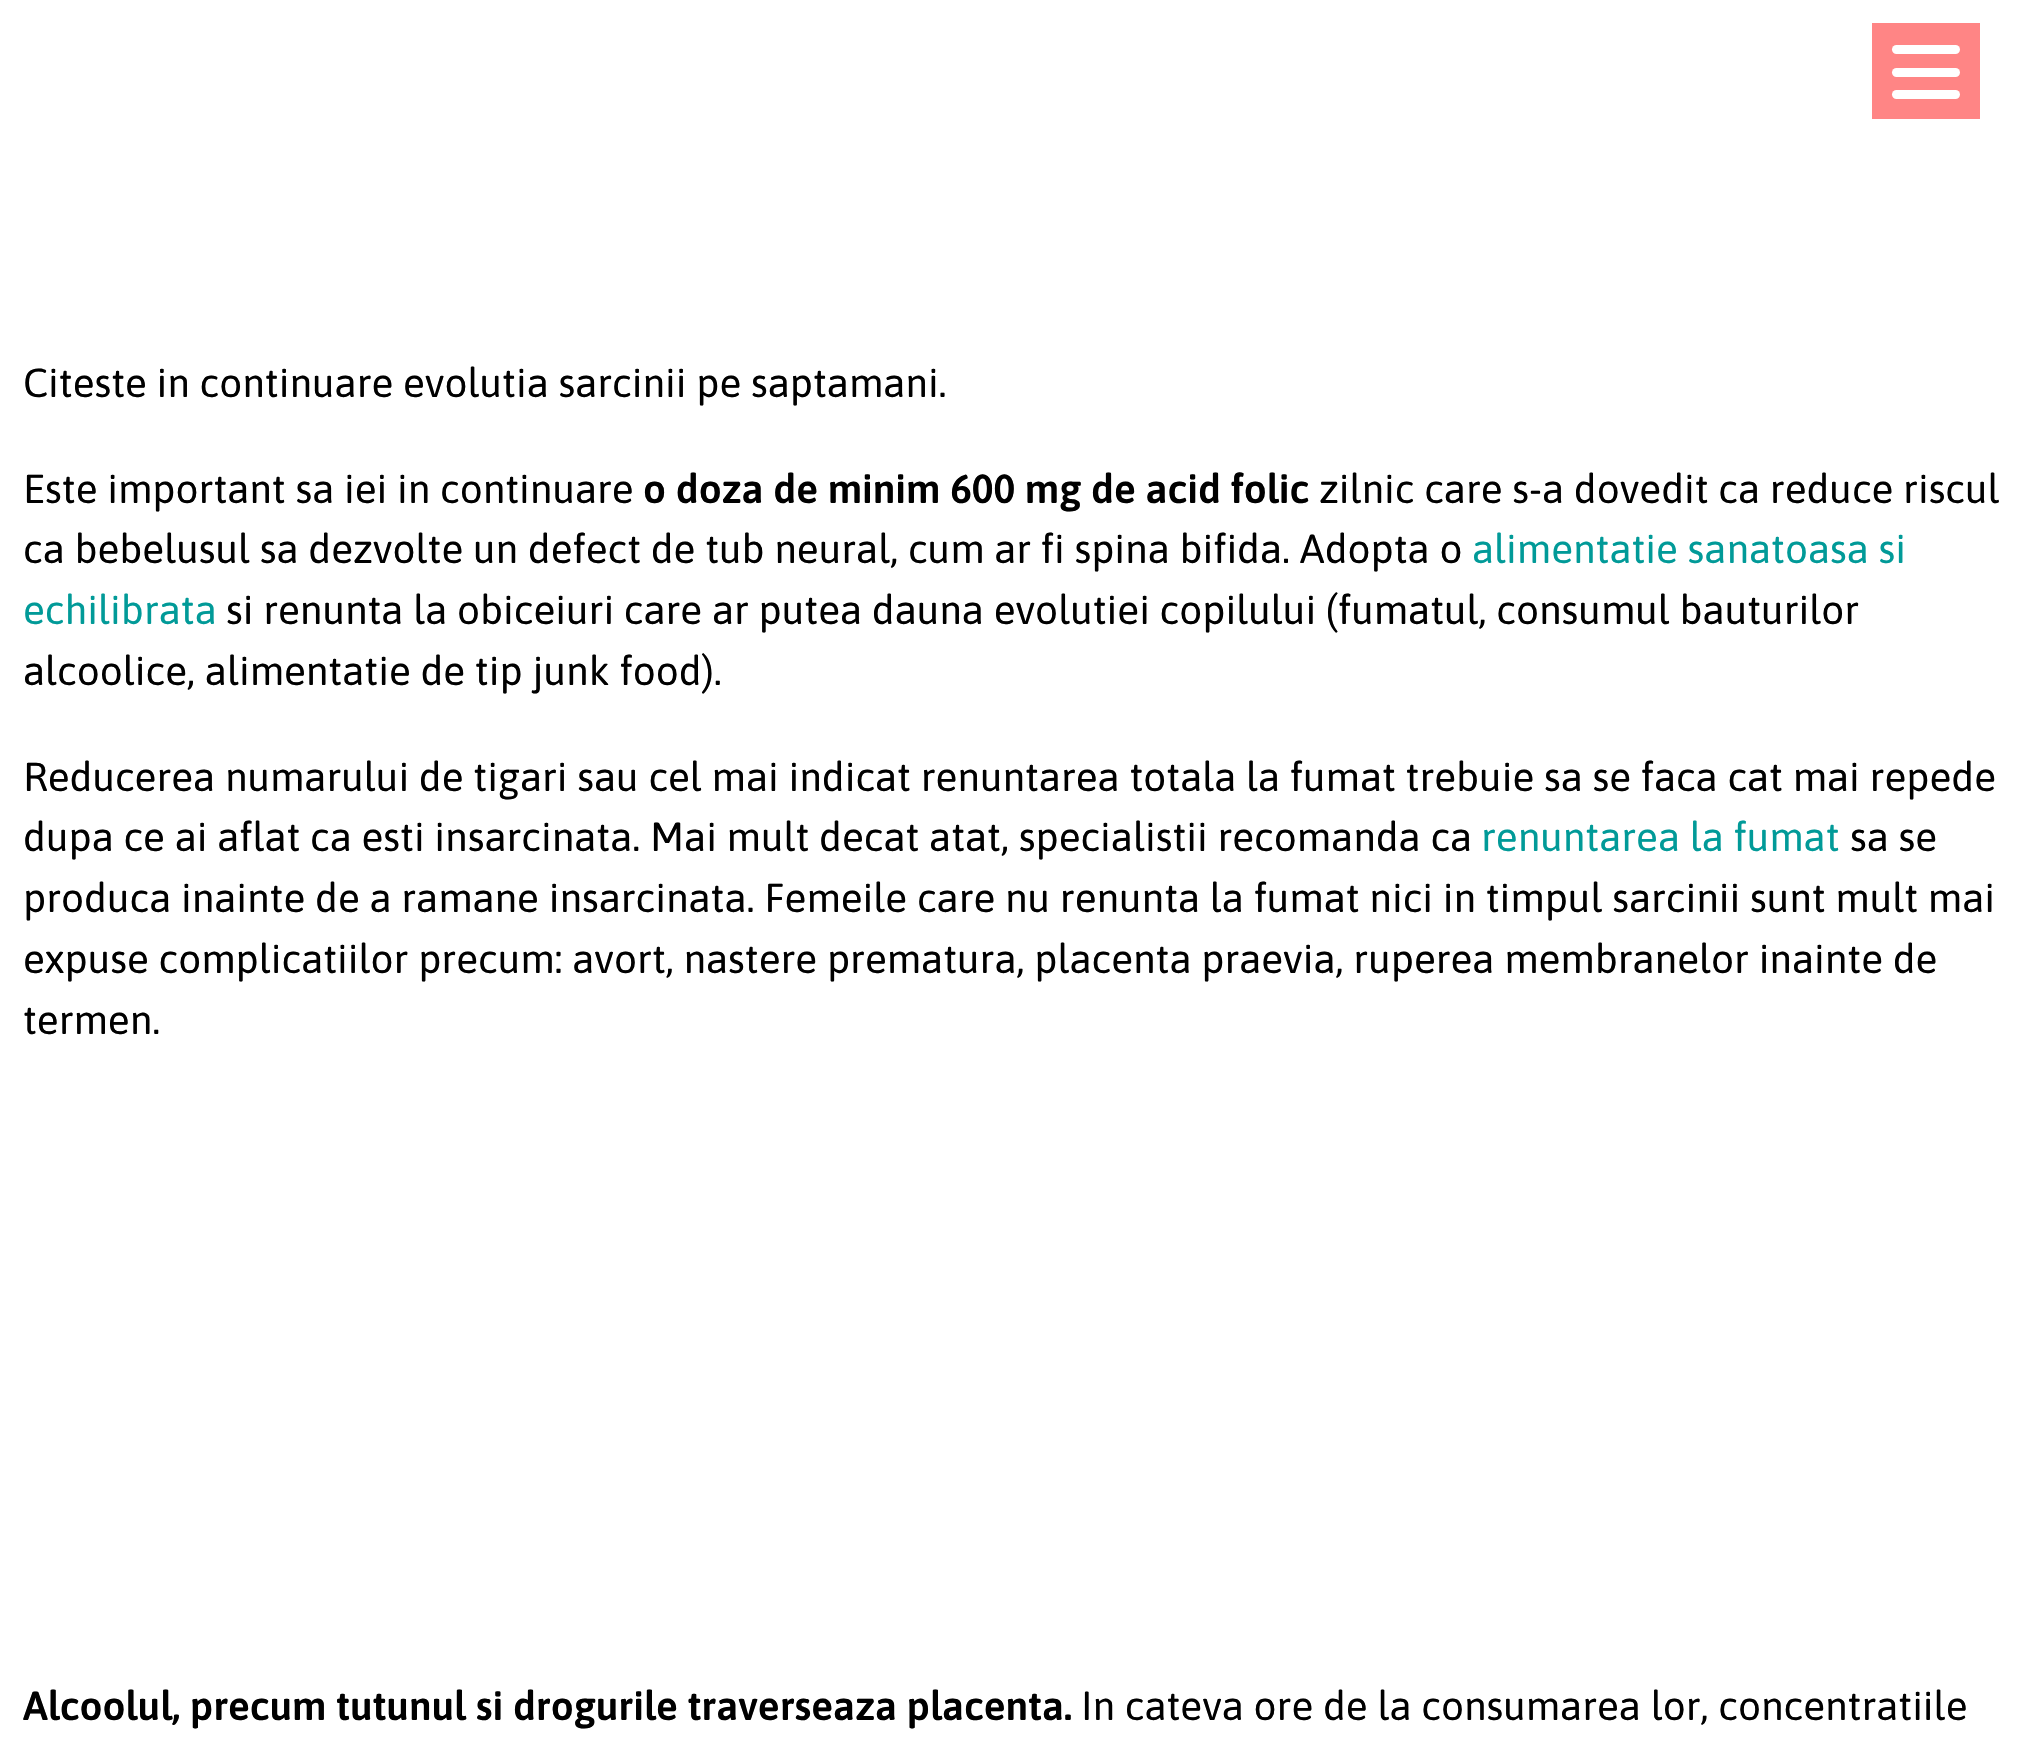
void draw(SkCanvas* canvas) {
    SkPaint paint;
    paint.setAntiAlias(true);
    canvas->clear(0xFFFFFFFF);
    paint.setColor(0xFFFF8585);
    canvas->drawRect(SkRect::MakeXYWH(1872, 23, 108, 96), paint);
    paint.setColor(0xFFFFFFFF);
    canvas->drawRoundRect(SkRect::MakeXYWH(1892, 45, 68, 9), 4.5f, 4.5f, paint);
    canvas->drawRoundRect(SkRect::MakeXYWH(1892, 68, 68, 9), 4.5f, 4.5f, paint);
    canvas->drawRoundRect(SkRect::MakeXYWH(1892, 90, 68, 9), 4.5f, 4.5f, paint);
    SkFont font1(fontMgr->matchFamilyStyle("Asap", SkFontStyle::Normal()), 40.5f);
    font1.setSubpixel(true);
    paint.setColor(0xFF000000);
    canvas->drawString("Citeste in continuare evolutia sarcinii pe saptamani.", 23, 397, font1, paint);
    canvas->drawString("Este important sa iei in continuare", 23, 503, font1, paint);
    SkFont font2(fontMgr->matchFamilyStyle("Asap", SkFontStyle(600, SkFontStyle::kNormal_Width, SkFontStyle::kUpright_Slant)), 40.5f);
    font2.setSubpixel(true);
    canvas->drawString("o doza de minim 600 mg de acid folic", 643, 503, font2, paint);
    canvas->drawString("zilnic care s-a dovedit ca reduce riscul", 1319, 503, font1, paint);
    canvas->drawString("ca bebelusul sa dezvolte un defect de tub neural, cum ar fi spina bifida. Adopta o", 23, 563, font1, paint);
    paint.setColor(0xFF019A98);
    canvas->drawString("alimentatie sanatoasa si", 1472, 563, font1, paint);
    canvas->drawString("echilibrata", 23, 624, font1, paint);
    paint.setColor(0xFF000000);
    canvas->drawString("si renunta la obiceiuri care ar putea dauna evolutiei copilului (fumatul, consumul bauturilor", 226, 624, font1, paint);
    canvas->drawString("alcoolice, alimentatie de tip junk food).", 23, 685, font1, paint);
    canvas->drawString("Reducerea numarului de tigari sau cel mai indicat renuntarea totala la fumat trebuie sa se faca cat mai repede", 23, 791, font1, paint);
    canvas->drawString("dupa ce ai aflat ca esti insarcinata. Mai mult decat atat, specialistii recomanda ca", 23, 851, font1, paint);
    paint.setColor(0xFF019A98);
    canvas->drawString("renuntarea la fumat", 1481, 851, font1, paint);
    paint.setColor(0xFF000000);
    canvas->drawString("sa se", 1850, 851, font1, paint);
    canvas->drawString("produca inainte de a ramane insarcinata. Femeile care nu renunta la fumat nici in timpul sarcinii sunt mult mai", 23, 912, font1, paint);
    canvas->drawString("expuse complicatiilor precum: avort, nastere prematura, placenta praevia, ruperea membranelor inainte de", 23, 973, font1, paint);
    canvas->drawString("termen.", 23, 1034, font1, paint);
    canvas->drawString("Alcoolul, precum tutunul si drogurile traverseaza placenta.", 23, 1720, font2, paint);
    canvas->drawString("In cateva ore de la consumarea lor, concentratiile", 1081, 1720, font1, paint);
}
